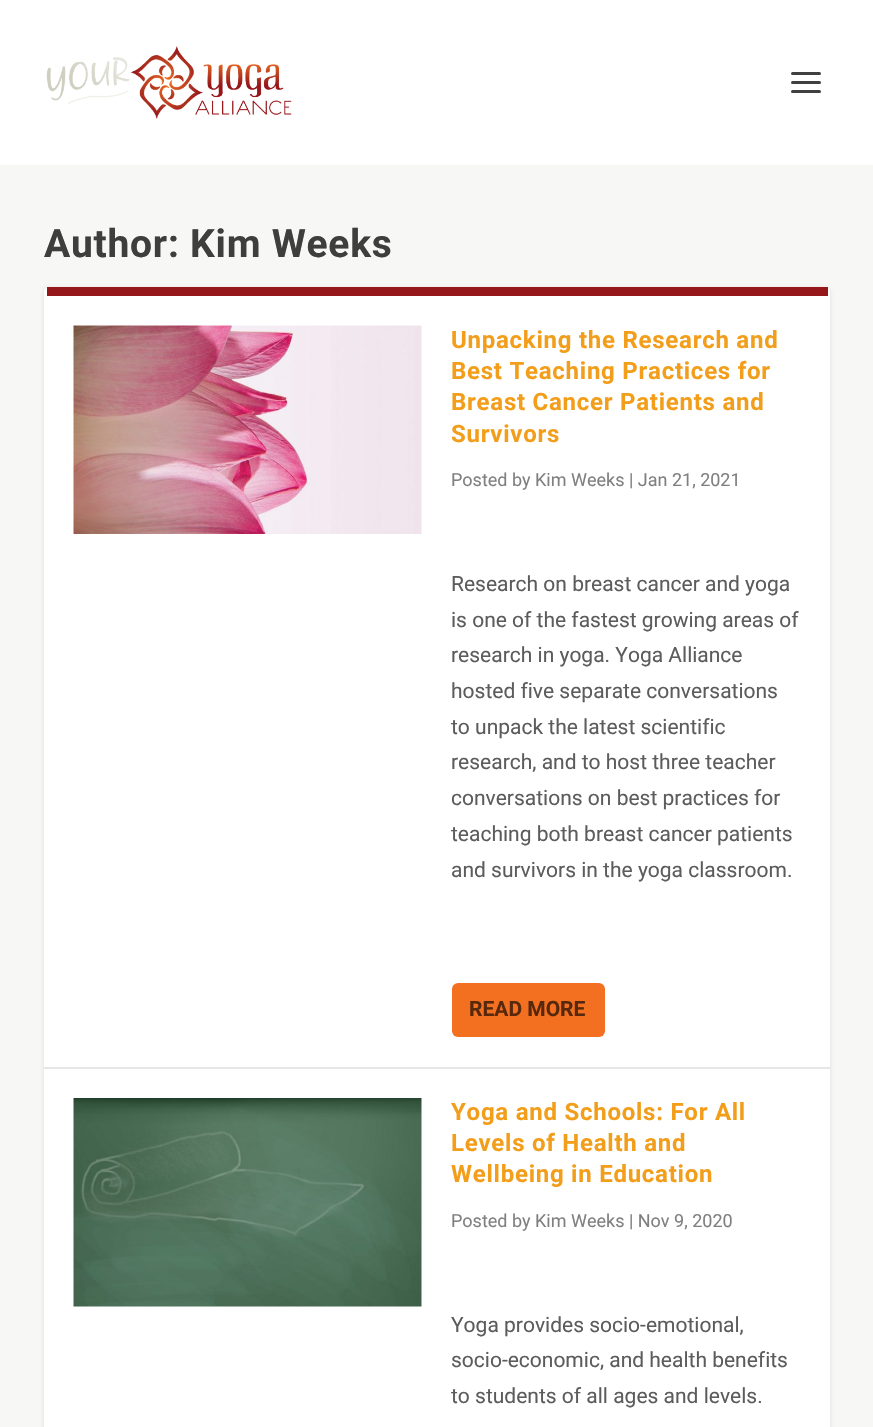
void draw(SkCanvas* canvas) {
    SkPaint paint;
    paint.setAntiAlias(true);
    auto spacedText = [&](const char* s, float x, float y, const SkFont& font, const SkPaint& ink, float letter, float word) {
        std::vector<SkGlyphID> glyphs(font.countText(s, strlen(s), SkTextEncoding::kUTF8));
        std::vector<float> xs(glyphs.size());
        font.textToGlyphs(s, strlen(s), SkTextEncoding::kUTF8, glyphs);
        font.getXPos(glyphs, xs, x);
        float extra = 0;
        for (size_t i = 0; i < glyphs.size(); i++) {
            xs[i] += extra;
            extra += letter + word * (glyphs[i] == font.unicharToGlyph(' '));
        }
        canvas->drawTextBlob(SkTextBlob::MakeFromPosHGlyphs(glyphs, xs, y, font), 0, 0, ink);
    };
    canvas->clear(0xFFF7F7F5);
    paint.setColor(0xFFFFFFFF);
    canvas->drawRect(SkRect::MakeXYWH(0, 0, 873, 165), paint);
    canvas->drawImageRect(SkImages::DeferredFromEncodedData(SkData::MakeFromFileName("img1.png")), SkRect::MakeXYWH(46, 46, 246, 73), SkSamplingOptions());
    paint.setColor(0xFF404040);
    canvas->drawRoundRect(SkRect::MakeXYWH(791, 72, 30, 3), 1.5f, 1.5f, paint);
    canvas->drawRoundRect(SkRect::MakeXYWH(791, 81, 30, 3), 1.5f, 1.5f, paint);
    canvas->drawRoundRect(SkRect::MakeXYWH(791, 90, 30, 3), 1.5f, 1.5f, paint);
    SkFont font1(fontMgr->matchFamilyStyle("Roboto", SkFontStyle::Bold()), 39);
    font1.setSubpixel(true);
    paint.setColor(0xFF3E3E3D);
    spacedText("Author: Kim Weeks", 44, 257, font1, paint, 0.75f, 0);
    paint.setColor(0x1A000000);
    paint.setMaskFilter(SkMaskFilter::MakeBlur(kNormal_SkBlurStyle, 2));
    canvas->drawRoundRect(SkRect::MakeXYWH(44, 288, 786, 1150), 5, 5, paint);
    paint.setMaskFilter(nullptr);
    paint.setColor(0xFFFFFFFF);
    canvas->drawRoundRect(SkRect::MakeXYWH(44, 287, 786, 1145), 5, 5, paint);
    paint.setColor(0xFF96171A);
    canvas->drawRect(SkRect::MakeXYWH(47, 287, 781, 9), paint);
    paint.setColor(0xFFE6E6E6);
    canvas->drawRect(SkRect::MakeXYWH(44, 1067, 786, 2), paint);
    canvas->drawImageRect(SkImages::DeferredFromEncodedData(SkData::MakeFromFileName("img2.png")), SkRect::MakeXYWH(73, 325, 349, 209), SkSamplingOptions());
    SkFont font2(fontMgr->matchFamilyStyle("Roboto", SkFontStyle::Bold()), 24);
    font2.setSubpixel(true);
    paint.setColor(0xFFF29E1A);
    spacedText("Unpacking the Research and", 451, 348, font2, paint, 0.75f, 0);
    spacedText("Best Teaching Practices for", 451, 379, font2, paint, 0.75f, 0);
    spacedText("Breast Cancer Patients and", 451, 410, font2, paint, 0.75f, 0);
    spacedText("Survivors", 451, 442, font2, paint, 0.75f, 0);
    SkFont font3(fontMgr->matchFamilyStyle("Roboto", SkFontStyle::Normal()), 18);
    font3.setSubpixel(true);
    paint.setColor(0xFF808080);
    canvas->drawString("Posted by Kim Weeks | Jan 21, 2021", 451, 486, font3, paint);
    SkFont font4(fontMgr->matchFamilyStyle("Roboto", SkFontStyle::Normal()), 21);
    font4.setSubpixel(true);
    paint.setColor(0xFF5C5C5C);
    canvas->drawString("Research on breast cancer and yoga", 451, 591, font4, paint);
    canvas->drawString("is one of the fastest growing areas of", 451, 627, font4, paint);
    canvas->drawString("research in yoga. Yoga Alliance", 451, 662, font4, paint);
    canvas->drawString("hosted five separate conversations", 451, 698, font4, paint);
    canvas->drawString("to unpack the latest scientific", 451, 734, font4, paint);
    canvas->drawString("research, and to host three teacher", 451, 769, font4, paint);
    canvas->drawString("conversations on best practices for", 451, 805, font4, paint);
    canvas->drawString("teaching both breast cancer patients", 451, 841, font4, paint);
    canvas->drawString("and survivors in the yoga classroom.", 451, 877, font4, paint);
    paint.setColor(0xFFF37021);
    canvas->drawRoundRect(SkRect::MakeXYWH(452, 983, 153, 54), 6, 6, paint);
    SkFont font5(fontMgr->matchFamilyStyle("Roboto", SkFontStyle::Bold()), 21);
    font5.setSubpixel(true);
    paint.setColor(0xFF57280C);
    canvas->drawString("READ MORE", 469, 1016, font5, paint);
    canvas->drawImageRect(SkImages::DeferredFromEncodedData(SkData::MakeFromFileName("img3.png")), SkRect::MakeXYWH(73, 1098, 349, 209), SkSamplingOptions());
    paint.setColor(0xFFF29E1A);
    spacedText("Yoga and Schools: For All", 451, 1120, font2, paint, 0.75f, 0);
    spacedText("Levels of Health and", 451, 1151, font2, paint, 0.75f, 0);
    spacedText("Wellbeing in Education", 451, 1182, font2, paint, 0.75f, 0);
    paint.setColor(0xFF808080);
    canvas->drawString("Posted by Kim Weeks | Nov 9, 2020", 451, 1227, font3, paint);
    paint.setColor(0xFF5C5C5C);
    canvas->drawString("Yoga provides socio-emotional,", 451, 1332, font4, paint);
    canvas->drawString("socio-economic, and health benefits", 451, 1367, font4, paint);
    canvas->drawString("to students of all ages and levels.", 451, 1403, font4, paint);
}
